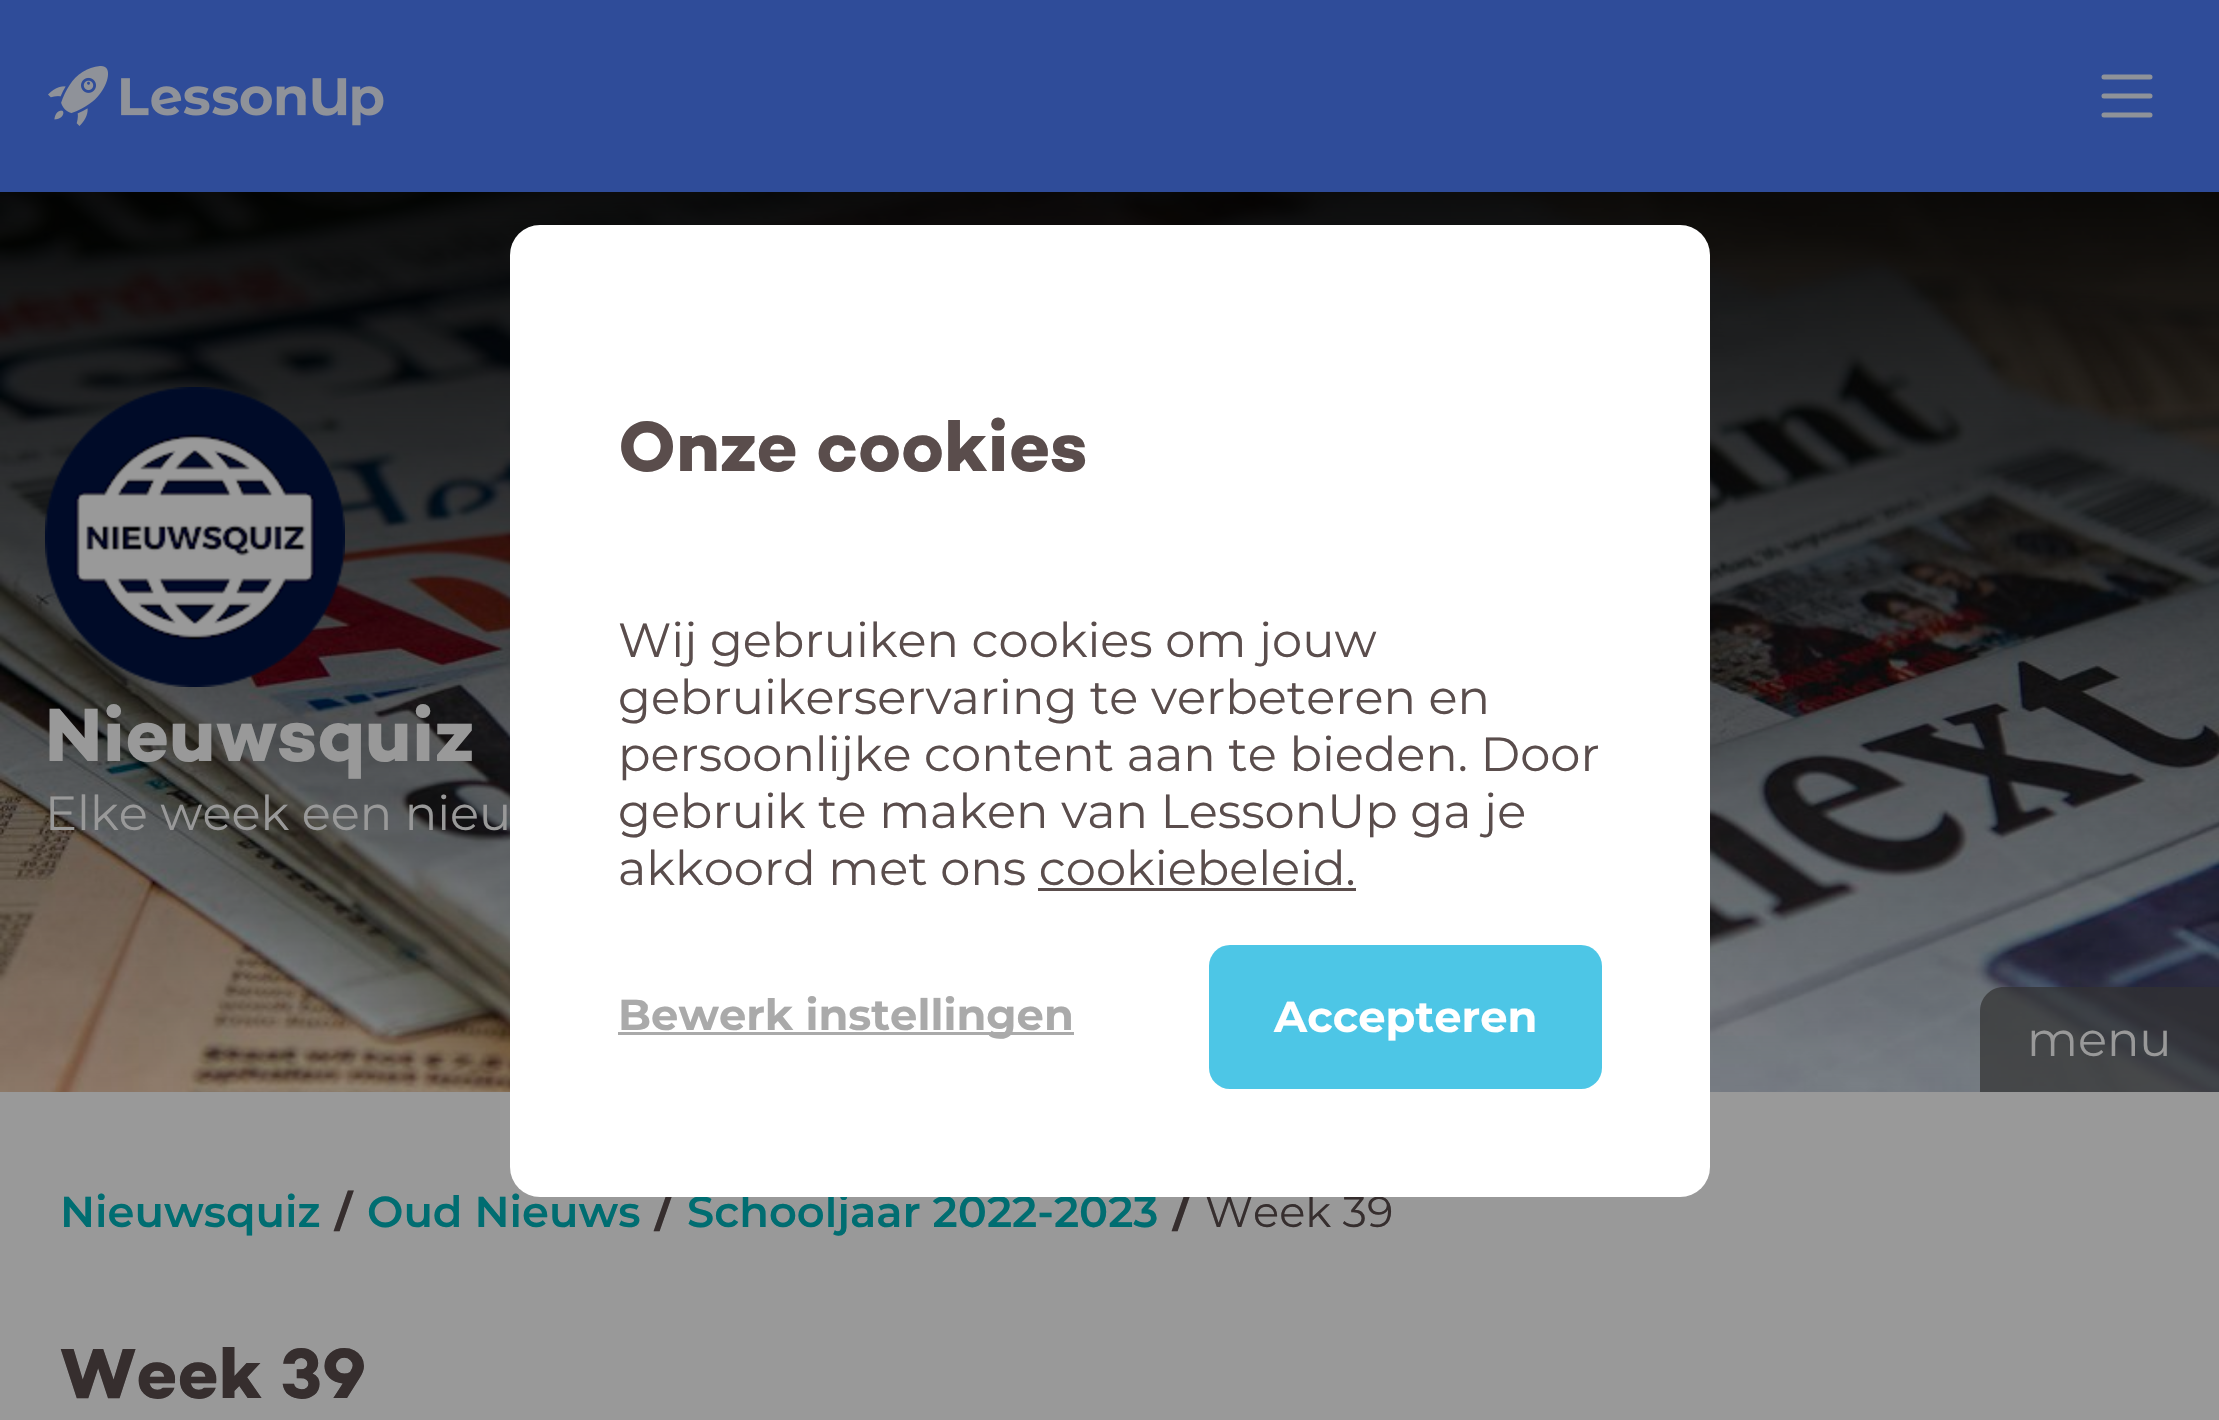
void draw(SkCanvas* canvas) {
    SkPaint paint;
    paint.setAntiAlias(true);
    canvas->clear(0xFF999999);
    canvas->drawImageRect(SkImages::DeferredFromEncodedData(SkData::MakeFromFileName("img2.png")), SkRect::MakeXYWH(0, 192, 2219, 900), SkSamplingOptions());
    SkFont font1(fontMgr->matchFamilyStyle("Montserrat", SkFontStyle(600, SkFontStyle::kNormal_Width, SkFontStyle::kUpright_Slant)), 43.25f);
    font1.setSubpixel(true);
    paint.setColor(0xFF006D71);
    canvas->drawString("Oud Nieuws", 367, 1227, font1, paint);
    SkFont font2(fontMgr->matchFamilyStyle("Montserrat", SkFontStyle::Bold()), 43.25f);
    font2.setSubpixel(true);
    paint.setColor(0xFF362E2E);
    canvas->drawString("/", 655, 1227, font2, paint);
    paint.setColor(0xFF006D71);
    canvas->drawString("Schooljaar 2022-2023", 687, 1227, font1, paint);
    paint.setColor(0xFF362E2E);
    canvas->drawString("/", 1173, 1227, font2, paint);
    SkFont font3(fontMgr->matchFamilyStyle("Montserrat", SkFontStyle::Normal()), 43.25f);
    font3.setSubpixel(true);
    canvas->drawString("Week 39", 1205, 1227, font3, paint);
    paint.setColor(0xFFFFFFFF);
    canvas->drawRoundRect(SkRect::MakeXYWH(510, 225, 1200, 972), 30, 30, paint);
    SkFont font4(fontMgr->matchFamilyStyle("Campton", SkFontStyle::Bold()), 72);
    font4.setSubpixel(true);
    paint.setColor(0xFF5A4D4C);
    canvas->drawString("Onze cookies", 618, 471, font4, paint);
    SkFont font5(fontMgr->matchFamilyStyle("Montserrat", SkFontStyle::Normal()), 48);
    font5.setSubpixel(true);
    canvas->drawString("Wij gebruiken cookies om jouw", 618, 657, font5, paint);
    canvas->drawString("gebruikerservaring te verbeteren en", 618, 714, font5, paint);
    canvas->drawString("persoonlijke content aan te bieden. Door", 618, 771, font5, paint);
    canvas->drawString("gebruik te maken van LessonUp ga je", 618, 828, font5, paint);
    canvas->drawString("akkoord met ons cookiebeleid.", 618, 885, font5, paint);
    canvas->drawRect(SkRect::MakeXYWH(1038, 888, 318, 3), paint);
    paint.setColor(0xFFAAAAAA);
    canvas->drawRect(SkRect::MakeXYWH(618, 1032, 456, 3), paint);
    canvas->drawString("Bewerk instellingen", 618, 1030, font2, paint);
    paint.setColor(0xFF4DC6E6);
    canvas->drawRoundRect(SkRect::MakeXYWH(1209, 945, 393, 144), 21, 21, paint);
    paint.setColor(0xFFFFFFFF);
    canvas->drawString("Accepteren", 1274, 1032, font2, paint);
    paint.setColor(0xFF2F4C99);
    canvas->drawRect(SkRect::MakeXYWH(0, 0, 2219, 192), paint);
    canvas->drawImageRect(SkImages::DeferredFromEncodedData(SkData::MakeFromFileName("img1.png")), SkRect::MakeXYWH(48, 66, 336, 60), SkSamplingOptions());
    paint.setStyle(SkPaint::kStroke_Style);
    paint.setStrokeWidth(5);
    paint.setStrokeCap(SkPaint::kRound_Cap);
    paint.setStrokeJoin(SkPaint::kRound_Join);
    paint.setColor(0xFF8F9299);
    canvas->drawPath(SkPathBuilder().moveTo(2104, 77).lineTo(2150, 77).moveTo(2104, 96).lineTo(2150, 96).moveTo(2104, 115).lineTo(2150, 115).detach(), paint);
    canvas->drawImageRect(SkImages::DeferredFromEncodedData(SkData::MakeFromFileName("img3.png")), SkRect::MakeXYWH(45, 387, 300, 300), SkSamplingOptions());
    SkFont font6(fontMgr->matchFamilyStyle("Campton", SkFontStyle::Bold()), 76.75f);
    font6.setSubpixel(true);
    paint.setStyle(SkPaint::kFill_Style);
    paint.setColor(0xFF999999);
    canvas->drawString("Nieuwsquiz", 45, 761, font6, paint);
    canvas->drawString("Elke week een nieu", 45, 830, font5, paint);
    paint.setColor(0xB3303030);
    canvas->drawPath(SkPathBuilder().moveTo(2004, 987).lineTo(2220, 987).lineTo(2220, 1092).lineTo(1980, 1092).lineTo(1980, 1011).cubicTo(1980, 997.5f, 1990.5f, 987, 2004, 987).close().detach(), paint);
    paint.setColor(0xFF999999);
    canvas->drawString("menu", 2027, 1056, font5, paint);
    paint.setColor(0xFF006D71);
    canvas->drawString("Nieuwsquiz", 60, 1227, font1, paint);
    paint.setColor(0xFF362E2E);
    canvas->drawString("/", 335, 1227, font2, paint);
    canvas->drawString("Week 39", 60, 1398, font4, paint);
}
